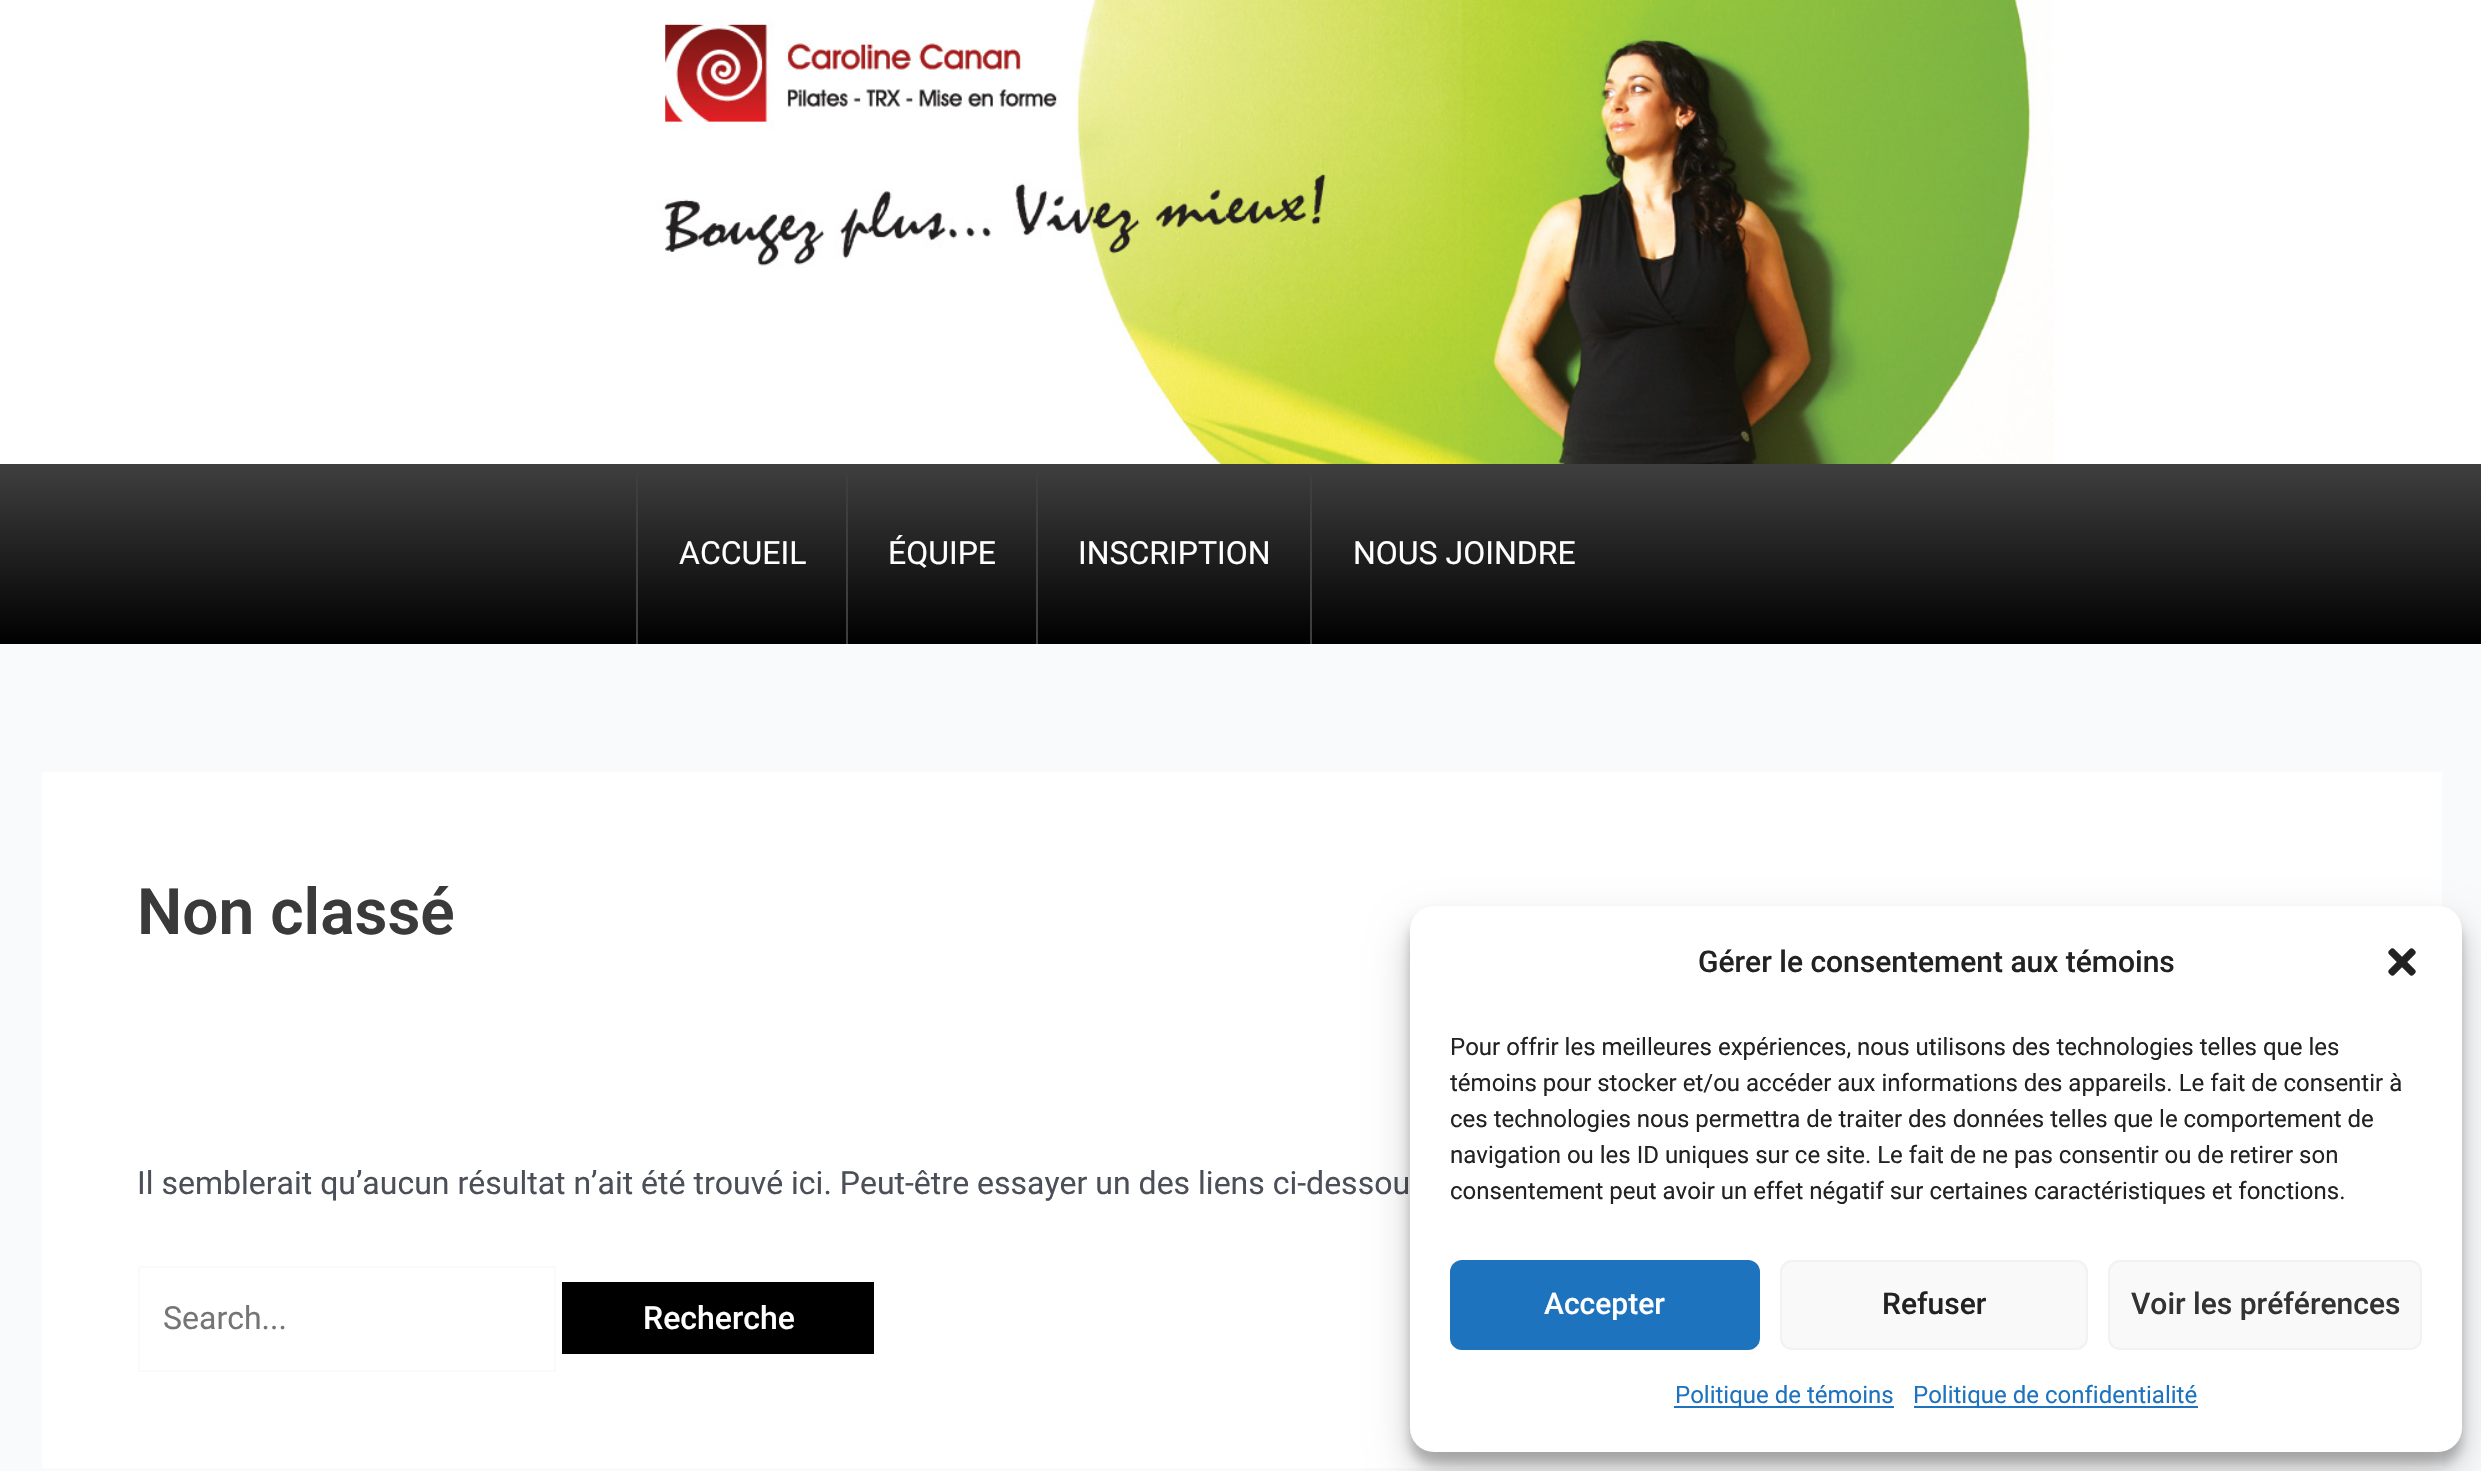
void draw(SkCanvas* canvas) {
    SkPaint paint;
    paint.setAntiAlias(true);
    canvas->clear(0xFFF9FAFB);
    canvas->drawImageRect(SkImages::DeferredFromEncodedData(SkData::MakeFromFileName("img1.png")), SkRect::MakeXYWH(0, 0, 2481, 464), SkSamplingOptions());
    {
        const SkColor colors[] = {0xFF3F3F3F, 0xFF000000};
        const float stops[] = {0, 1};
        const SkPoint ends[] = {{1241, 464}, {1241, 644}};
        paint.setShader(SkGradientShader::MakeLinear(ends, colors, stops, 2, SkTileMode::kClamp));
        paint.setAlpha(255);
    }
    canvas->drawRect(SkRect::MakeXYWH(0, 464, 2481, 180), paint);
    paint.setShader(nullptr);
    paint.setColor(0xFF3E3E3E);
    canvas->drawRect(SkRect::MakeXYWH(636, 474, 2, 170), paint);
    SkFont font1(fontMgr->matchFamilyStyle("Roboto", SkFontStyle::Normal()), 32);
    font1.setSubpixel(true);
    paint.setColor(0xFFFFFFFF);
    canvas->drawString("ACCUEIL", 679, 564, font1, paint);
    paint.setColor(0xFF3E3E3E);
    canvas->drawRect(SkRect::MakeXYWH(846, 474, 2, 170), paint);
    paint.setColor(0xFFFFFFFF);
    canvas->drawString("ÉQUIPE", 888, 564, font1, paint);
    paint.setColor(0xFF3E3E3E);
    canvas->drawRect(SkRect::MakeXYWH(1036, 474, 2, 170), paint);
    paint.setColor(0xFFFFFFFF);
    canvas->drawString("INSCRIPTION", 1078, 564, font1, paint);
    paint.setColor(0xFF3E3E3E);
    canvas->drawRect(SkRect::MakeXYWH(1310, 474, 2, 170), paint);
    paint.setColor(0xFFFFFFFF);
    canvas->drawString("NOUS JOINDRE", 1353, 564, font1, paint);
    canvas->drawRect(SkRect::MakeXYWH(42, 772, 2400, 696), paint);
    SkFont font2(fontMgr->matchFamilyStyle("Roboto", SkFontStyle(600, SkFontStyle::kNormal_Width, SkFontStyle::kUpright_Slant)), 64);
    font2.setSubpixel(true);
    paint.setColor(0xFF3A3A3A);
    canvas->drawString("Non classé", 137, 934, font2, paint);
    paint.setColor(0xFF4B4F58);
    canvas->drawString("Il semblerait qu’aucun résultat n’ait été trouvé ici. Peut-être essayer un des liens ci-dessou", 137, 1194, font1, paint);
    paint.setStyle(SkPaint::kStroke_Style);
    paint.setStrokeWidth(2);
    paint.setColor(0xFFF9FAFB);
    canvas->drawRect(SkRect::MakeXYWH(139, 1267, 416, 104), paint);
    paint.setStyle(SkPaint::kFill_Style);
    paint.setColor(0xFF757575);
    canvas->drawString("Search...", 163, 1329, font1, paint);
    paint.setColor(0xFF000000);
    canvas->drawRect(SkRect::MakeXYWH(562, 1282, 312, 72), paint);
    SkFont font3(fontMgr->matchFamilyStyle("Roboto", SkFontStyle(500, SkFontStyle::kNormal_Width, SkFontStyle::kUpright_Slant)), 32);
    font3.setSubpixel(true);
    paint.setColor(0xFFFFFFFF);
    canvas->drawString("Recherche", 643, 1329, font3, paint);
    paint.setColor(0x3B000000);
    paint.setMaskFilter(SkMaskFilter::MakeBlur(kNormal_SkBlurStyle, 6));
    canvas->drawRoundRect(SkRect::MakeXYWH(1410, 918, 1052, 546), 24, 24, paint);
    paint.setMaskFilter(nullptr);
    paint.setColor(0x30000000);
    paint.setMaskFilter(SkMaskFilter::MakeBlur(kNormal_SkBlurStyle, 20));
    canvas->drawRoundRect(SkRect::MakeXYWH(1410, 926, 1052, 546), 24, 24, paint);
    paint.setMaskFilter(nullptr);
    paint.setColor(0xFFFFFFFF);
    canvas->drawRoundRect(SkRect::MakeXYWH(1410, 906, 1052, 546), 24, 24, paint);
    SkFont font4(fontMgr->matchFamilyStyle("Roboto", SkFontStyle(500, SkFontStyle::kNormal_Width, SkFontStyle::kUpright_Slant)), 30);
    font4.setSubpixel(true);
    paint.setColor(0xFF222222);
    canvas->drawString("Gérer le consentement aux témoins", 1698, 972, font4, paint);
    canvas->drawImageRect(SkImages::DeferredFromEncodedData(SkData::MakeFromFileName("img2.png")), SkRect::MakeXYWH(2388, 948, 28, 28), SkSamplingOptions());
    SkFont font5(fontMgr->matchFamilyStyle("Roboto", SkFontStyle::Normal()), 24);
    font5.setSubpixel(true);
    canvas->drawString("Pour offrir les meilleures expériences, nous utilisons des technologies telles que les", 1450, 1055, font5, paint);
    canvas->drawString("témoins pour stocker et/ou accéder aux informations des appareils. Le fait de consentir à", 1450, 1091, font5, paint);
    canvas->drawString("ces technologies nous permettra de traiter des données telles que le comportement de", 1450, 1127, font5, paint);
    canvas->drawString("navigation ou les ID uniques sur ce site. Le fait de ne pas consentir ou de retirer son", 1450, 1163, font5, paint);
    canvas->drawString("consentement peut avoir un effet négatif sur certaines caractéristiques et fonctions.", 1450, 1199, font5, paint);
    paint.setColor(0xFF1E73BE);
    canvas->drawRoundRect(SkRect::MakeXYWH(1451, 1261, 308, 88), 11, 11, paint);
    paint.setStyle(SkPaint::kStroke_Style);
    canvas->drawRoundRect(SkRect::MakeXYWH(1451, 1261, 308, 88), 11, 11, paint);
    paint.setStyle(SkPaint::kFill_Style);
    paint.setColor(0xFFFFFFFF);
    canvas->drawString("Accepter", 1544, 1314, font4, paint);
    paint.setColor(0xFFF9F9F9);
    canvas->drawRoundRect(SkRect::MakeXYWH(1781, 1261, 306, 88), 11, 11, paint);
    paint.setStyle(SkPaint::kStroke_Style);
    paint.setColor(0xFFF2F2F2);
    canvas->drawRoundRect(SkRect::MakeXYWH(1781, 1261, 306, 88), 11, 11, paint);
    paint.setStyle(SkPaint::kFill_Style);
    paint.setColor(0xFF222222);
    canvas->drawString("Refuser", 1882, 1314, font4, paint);
    paint.setColor(0xFFF9F9F9);
    canvas->drawRoundRect(SkRect::MakeXYWH(2109, 1261, 312, 88), 11, 11, paint);
    paint.setStyle(SkPaint::kStroke_Style);
    paint.setColor(0xFFF2F2F2);
    canvas->drawRoundRect(SkRect::MakeXYWH(2109, 1261, 312, 88), 11, 11, paint);
    paint.setStyle(SkPaint::kFill_Style);
    paint.setColor(0xFF333333);
    canvas->drawString("Voir les préférences", 2131, 1314, font4, paint);
    paint.setColor(0xFF1E73BE);
    canvas->drawRect(SkRect::MakeXYWH(1674, 1406, 220, 2), paint);
    canvas->drawString("Politique de témoins", 1675, 1403, font5, paint);
    canvas->drawRect(SkRect::MakeXYWH(1914, 1406, 284, 2), paint);
    canvas->drawString("Politique de confidentialité", 1913, 1403, font5, paint);
}
